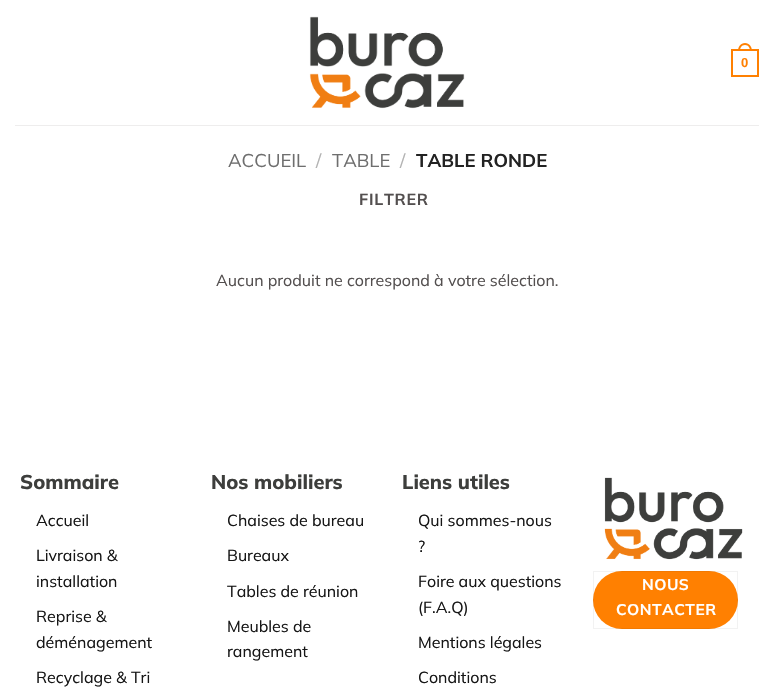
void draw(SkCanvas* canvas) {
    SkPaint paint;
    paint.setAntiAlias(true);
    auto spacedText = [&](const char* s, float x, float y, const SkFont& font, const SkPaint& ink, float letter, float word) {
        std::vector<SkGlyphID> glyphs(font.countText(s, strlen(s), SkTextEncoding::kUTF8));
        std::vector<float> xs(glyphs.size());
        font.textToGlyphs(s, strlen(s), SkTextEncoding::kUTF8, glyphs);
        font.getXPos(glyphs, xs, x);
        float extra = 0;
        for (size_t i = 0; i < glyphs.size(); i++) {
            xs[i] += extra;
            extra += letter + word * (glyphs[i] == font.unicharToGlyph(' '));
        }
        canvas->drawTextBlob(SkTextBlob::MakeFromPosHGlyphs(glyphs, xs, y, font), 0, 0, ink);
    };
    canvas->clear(0xFFFFFFFF);
    canvas->drawImageRect(SkImages::DeferredFromEncodedData(SkData::MakeFromFileName("img1.png")), SkRect::MakeXYWH(309, 16, 156, 93), SkSamplingOptions());
    paint.setStyle(SkPaint::kStroke_Style);
    paint.setStrokeWidth(2);
    paint.setColor(0xFFFF8001);
    canvas->drawRect(SkRect::MakeXYWH(732, 50, 26, 26), paint);
    paint.setStyle(SkPaint::kFill_Style);
    canvas->drawPath(SkPathBuilder(SkPathFillType::kEvenOdd).moveTo(745, 43).cubicTo(749.5f, 43, 752, 47, 752, 51).lineTo(738, 51).cubicTo(738, 47, 740.5f, 43, 745, 43).close().moveTo(745, 45).cubicTo(748.5f, 45, 750, 48, 750, 51).lineTo(740, 51).cubicTo(740, 48, 741.5f, 45, 745, 45).close().detach(), paint);
    SkFont font1(fontMgr->matchFamilyStyle("Liberation Sans", SkFontStyle::Bold()), 13);
    font1.setSubpixel(true);
    canvas->drawString("0", 741, 67, font1, paint);
    paint.setColor(0xFFEEEDED);
    canvas->drawRect(SkRect::MakeXYWH(15, 125, 744, 1), paint);
    SkFont font2(fontMgr->matchFamilyStyle("Mulish", SkFontStyle::Normal()), 18.5f);
    font2.setSubpixel(true);
    paint.setColor(0xFF6E6E6E);
    canvas->drawString("ACCUEIL", 228, 167, font2, paint);
    paint.setColor(0xFFB2B2B2);
    canvas->drawString("/", 316, 167, font2, paint);
    paint.setColor(0xFF6E6E6E);
    canvas->drawString("TABLE", 332, 167, font2, paint);
    paint.setColor(0xFFB2B2B2);
    canvas->drawString("/", 400, 167, font2, paint);
    SkFont font3(fontMgr->matchFamilyStyle("Mulish", SkFontStyle::Bold()), 18.5f);
    font3.setSubpixel(true);
    paint.setColor(0xFF222222);
    canvas->drawString("TABLE RONDE", 416, 167, font3, paint);
    SkFont font4(fontMgr->matchFamilyStyle("Mulish", SkFontStyle::Bold()), 16);
    font4.setSubpixel(true);
    paint.setColor(0xFF534F4F);
    spacedText("FILTRER", 359, 205, font4, paint, 0.75f, 0);
    SkFont font5(fontMgr->matchFamilyStyle("Mulish", SkFontStyle::Normal()), 16);
    font5.setSubpixel(true);
    canvas->drawString("Aucun produit ne correspond à votre sélection.", 216, 286, font5, paint);
    SkFont font6(fontMgr->matchFamilyStyle("Mulish", SkFontStyle(800, SkFontStyle::kNormal_Width, SkFontStyle::kUpright_Slant)), 20);
    font6.setSubpixel(true);
    paint.setColor(0xFF3D3E3C);
    canvas->drawString("Sommaire", 20, 489, font6, paint);
    paint.setColor(0xFF161616);
    canvas->drawString("Accueil", 36, 526, font5, paint);
    canvas->drawString("Livraison &", 36, 561, font5, paint);
    canvas->drawString("installation", 36, 587, font5, paint);
    canvas->drawString("Reprise &", 36, 622, font5, paint);
    canvas->drawString("déménagement", 36, 648, font5, paint);
    canvas->drawString("Recyclage & Tri", 36, 683, font5, paint);
    paint.setColor(0xFF3D3E3C);
    canvas->drawString("Nos mobiliers", 211, 489, font6, paint);
    paint.setColor(0xFF161616);
    canvas->drawString("Chaises de bureau", 227, 526, font5, paint);
    canvas->drawString("Bureaux", 227, 561, font5, paint);
    canvas->drawString("Tables de réunion", 227, 597, font5, paint);
    canvas->drawString("Meubles de", 227, 632, font5, paint);
    canvas->drawString("rangement", 227, 657, font5, paint);
    paint.setColor(0xFF3D3E3C);
    canvas->drawString("Liens utiles", 402, 489, font6, paint);
    paint.setColor(0xFF161616);
    canvas->drawString("Qui sommes-nous", 418, 526, font5, paint);
    canvas->drawString("?", 418, 552, font5, paint);
    canvas->drawString("Foire aux questions", 418, 587, font5, paint);
    canvas->drawString("(F.A.Q)", 418, 613, font5, paint);
    canvas->drawString("Mentions légales", 418, 648, font5, paint);
    canvas->drawString("Conditions", 418, 683, font5, paint);
    canvas->drawImageRect(SkImages::DeferredFromEncodedData(SkData::MakeFromFileName("img2.png")), SkRect::MakeXYWH(604, 477, 139, 83), SkSamplingOptions());
    paint.setColor(0xFFFF8001);
    canvas->drawRoundRect(SkRect::MakeXYWH(593, 571, 145, 58), 29, 29, paint);
    paint.setStyle(SkPaint::kStroke_Style);
    paint.setStrokeWidth(1);
    paint.setColor(0x0D000000);
    canvas->drawRect(SkRect::MakeXYWH(593.5f, 571.5f, 144, 57), paint);
    SkFont font7(fontMgr->matchFamilyStyle("Mulish", SkFontStyle::Bold()), 15.5f);
    font7.setSubpixel(true);
    paint.setStyle(SkPaint::kFill_Style);
    paint.setColor(0xFFFFFFFF);
    spacedText("NOUS", 642, 590, font7, paint, 0.5f, 0);
    spacedText("CONTACTER", 616, 615, font7, paint, 0.5f, 0);
}
